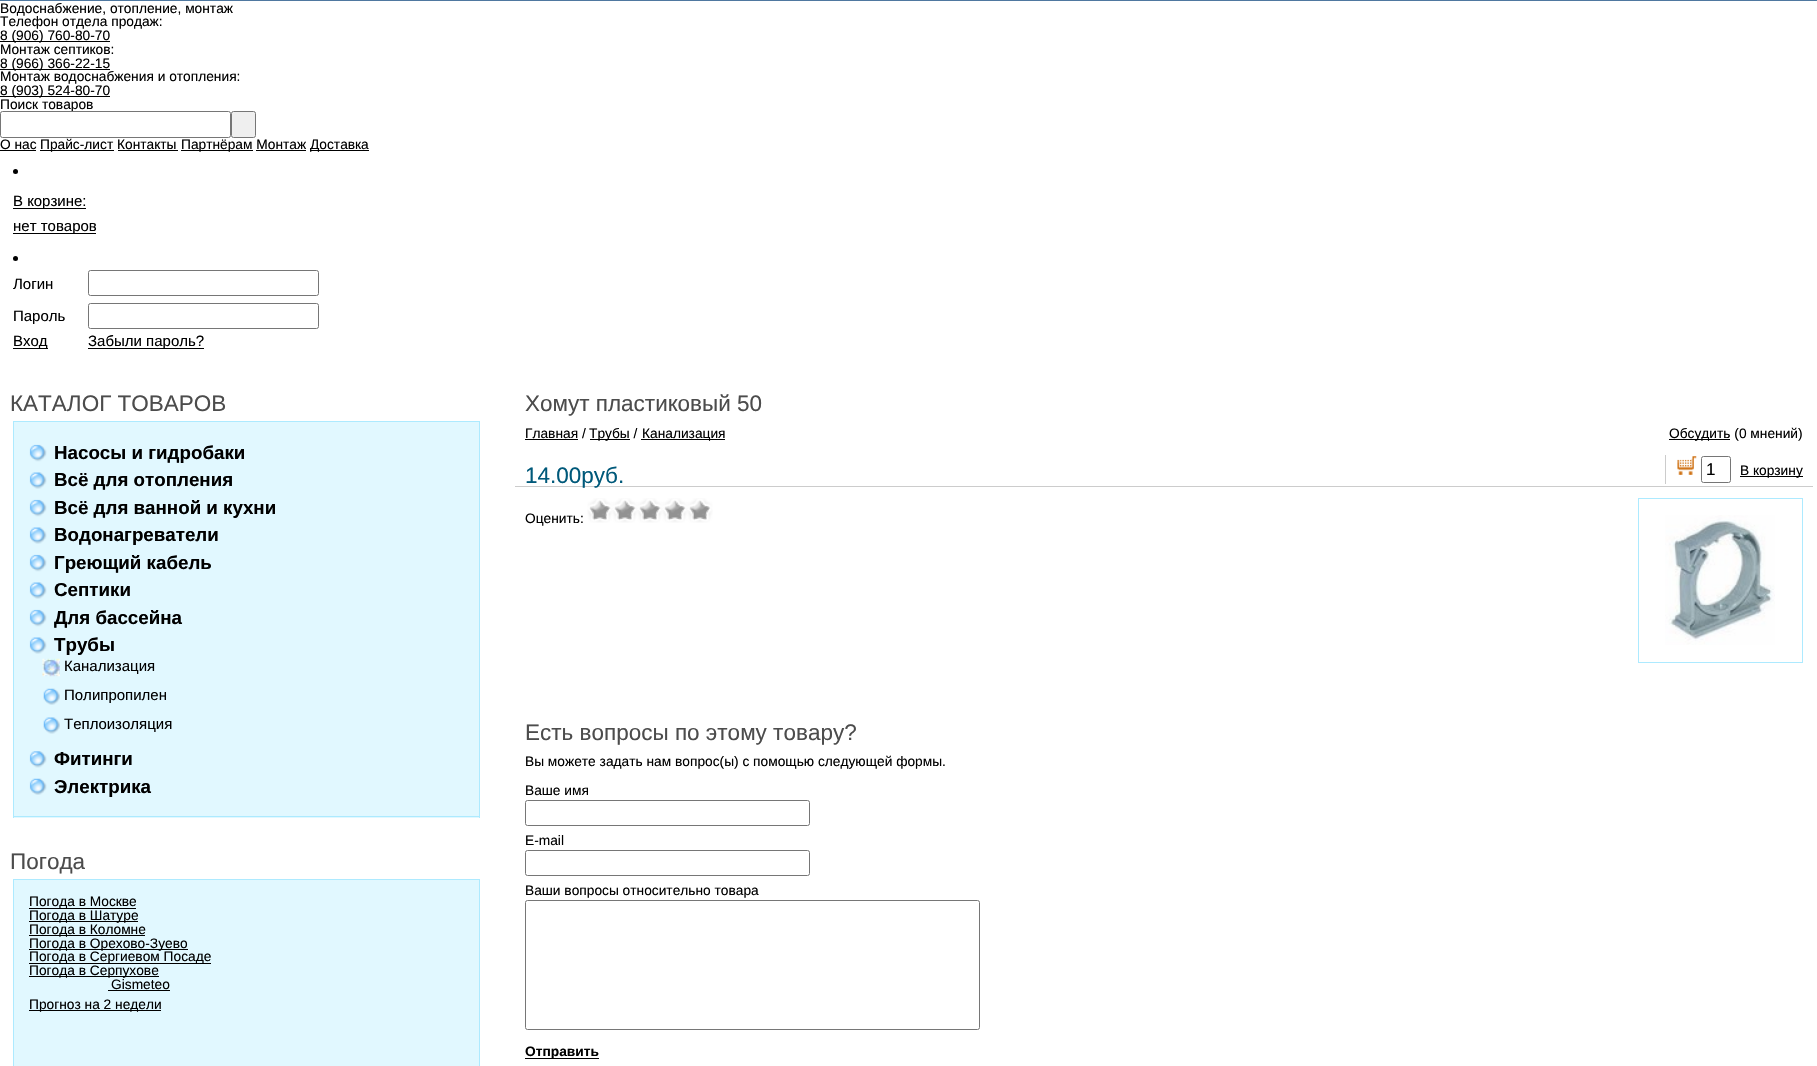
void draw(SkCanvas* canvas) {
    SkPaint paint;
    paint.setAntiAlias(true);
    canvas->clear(0xFFFFFFFF);
    paint.setColor(0xFF4F78A0);
    canvas->drawRect(SkRect::MakeXYWH(0, 0, 1817, 1), paint);
    SkFont font1(fontMgr->matchFamilyStyle("Liberation Sans", SkFontStyle::Normal()), 13.75f);
    font1.setSubpixel(true);
    paint.setColor(0xFF000000);
    canvas->drawString("Водоснабжение, отопление, монтаж", 0, 13, font1, paint);
    canvas->drawString("Телефон отдела продаж:", 0, 26, font1, paint);
    canvas->drawRect(SkRect::MakeXYWH(0, 41, 110, 1), paint);
    canvas->drawString("8 (906) 760-80-70", 0, 40, font1, paint);
    canvas->drawString("Монтаж септиков:", 0, 54, font1, paint);
    canvas->drawRect(SkRect::MakeXYWH(0, 69, 110, 1), paint);
    canvas->drawString("8 (966) 366-22-15", 0, 68, font1, paint);
    canvas->drawString("Монтаж водоснабжения и отопления:", 0, 81, font1, paint);
    canvas->drawRect(SkRect::MakeXYWH(0, 96, 110, 1), paint);
    canvas->drawString("8 (903) 524-80-70", 0, 95, font1, paint);
    canvas->drawString("Поиск товаров", 0, 109, font1, paint);
    paint.setColor(0xFFFFFFFF);
    canvas->drawRoundRect(SkRect::MakeXYWH(0.5f, 111.5f, 230, 26), 2, 2, paint);
    paint.setStyle(SkPaint::kStroke_Style);
    paint.setStrokeWidth(1);
    paint.setColor(0xFF767676);
    canvas->drawRoundRect(SkRect::MakeXYWH(0.5f, 111.5f, 230, 26), 2, 2, paint);
    paint.setStyle(SkPaint::kFill_Style);
    paint.setColor(0xFFEFEFEF);
    canvas->drawRoundRect(SkRect::MakeXYWH(231.5f, 111.5f, 24, 26), 2, 2, paint);
    paint.setStyle(SkPaint::kStroke_Style);
    paint.setColor(0xFF767676);
    canvas->drawRoundRect(SkRect::MakeXYWH(231.5f, 111.5f, 24, 26), 2, 2, paint);
    paint.setStyle(SkPaint::kFill_Style);
    paint.setColor(0xFF000000);
    canvas->drawString("О нас", 0, 149, font1, paint);
    canvas->drawRect(SkRect::MakeXYWH(0, 150, 36, 1), paint);
    canvas->drawRect(SkRect::MakeXYWH(40, 150, 74, 1), paint);
    canvas->drawString("Прайс-лист Контакты", 40, 149, font1, paint);
    canvas->drawRect(SkRect::MakeXYWH(181, 150, 72, 1), paint);
    canvas->drawString("Партнёрам Монтаж", 181, 149, font1, paint);
    canvas->drawRect(SkRect::MakeXYWH(310, 150, 59, 1), paint);
    canvas->drawString("Доставка", 310, 149, font1, paint);
    canvas->drawRect(SkRect::MakeXYWH(118, 150, 60, 1), paint);
    canvas->drawRect(SkRect::MakeXYWH(256, 150, 50, 1), paint);
    canvas->drawCircle(15.5f, 171.5f, 2.5f, paint);
    canvas->drawRect(SkRect::MakeXYWH(13, 208, 73, 1), paint);
    SkFont font2(fontMgr->matchFamilyStyle("Liberation Sans", SkFontStyle::Normal()), 15);
    font2.setSubpixel(true);
    canvas->drawString("В корзине:", 13, 206, font2, paint);
    canvas->drawRect(SkRect::MakeXYWH(13, 233, 83, 1), paint);
    canvas->drawString("нет товаров", 13, 231, font2, paint);
    canvas->drawCircle(15.5f, 258.5f, 2.5f, paint);
    canvas->drawString("Логин", 13, 289, font2, paint);
    paint.setStyle(SkPaint::kStroke_Style);
    paint.setColor(0xFF767676);
    canvas->drawRoundRect(SkRect::MakeXYWH(88.5f, 270.5f, 230, 25), 2, 2, paint);
    paint.setStyle(SkPaint::kFill_Style);
    paint.setColor(0xFF000000);
    canvas->drawString("Пароль", 13, 321, font2, paint);
    paint.setStyle(SkPaint::kStroke_Style);
    paint.setColor(0xFF767676);
    canvas->drawRoundRect(SkRect::MakeXYWH(88.5f, 303.5f, 230, 25), 2, 2, paint);
    paint.setStyle(SkPaint::kFill_Style);
    paint.setColor(0xFF000000);
    canvas->drawRect(SkRect::MakeXYWH(13, 348, 35, 1), paint);
    canvas->drawString("Вход", 13, 346, font2, paint);
    canvas->drawRect(SkRect::MakeXYWH(88, 348, 116, 1), paint);
    canvas->drawString("Забыли пароль?", 88, 346, font2, paint);
    SkFont font3(fontMgr->matchFamilyStyle("Liberation Sans", SkFontStyle::Normal()), 22.5f);
    font3.setSubpixel(true);
    paint.setColor(0xFF4C4C4C);
    canvas->drawString("КАТАЛОГ ТОВАРОВ", 10, 411, font3, paint);
    paint.setColor(0xFFE1F8FF);
    canvas->drawRect(SkRect::MakeXYWH(14, 422, 465, 396), paint);
    paint.setColor(0xFFADEAFF);
    canvas->drawRect(SkRect::MakeXYWH(13, 421, 467, 1), paint);
    canvas->drawRect(SkRect::MakeXYWH(479, 421, 1, 397), paint);
    canvas->drawRect(SkRect::MakeXYWH(13, 816, 467, 1), paint);
    canvas->drawRect(SkRect::MakeXYWH(13, 421, 1, 397), paint);
    canvas->drawImageRect(SkImages::DeferredFromEncodedData(SkData::MakeFromFileName("img1.png")), SkRect::MakeXYWH(29, 444, 18, 18), SkSamplingOptions());
    SkFont font4(fontMgr->matchFamilyStyle("Liberation Sans", SkFontStyle::Bold()), 18.75f);
    font4.setSubpixel(true);
    paint.setColor(0xFF000000);
    canvas->drawString("Насосы и гидробаки", 54, 459, font4, paint);
    canvas->drawImageRect(SkImages::DeferredFromEncodedData(SkData::MakeFromFileName("img2.png")), SkRect::MakeXYWH(29, 472, 18, 17), SkSamplingOptions());
    canvas->drawString("Всё для отопления", 54, 486, font4, paint);
    canvas->drawImageRect(SkImages::DeferredFromEncodedData(SkData::MakeFromFileName("img1.png")), SkRect::MakeXYWH(29, 499, 18, 18), SkSamplingOptions());
    canvas->drawString("Всё для ванной и кухни", 54, 514, font4, paint);
    canvas->drawImageRect(SkImages::DeferredFromEncodedData(SkData::MakeFromFileName("img2.png")), SkRect::MakeXYWH(29, 527, 18, 17), SkSamplingOptions());
    canvas->drawString("Водонагреватели", 54, 541, font4, paint);
    canvas->drawImageRect(SkImages::DeferredFromEncodedData(SkData::MakeFromFileName("img1.png")), SkRect::MakeXYWH(29, 554, 18, 18), SkSamplingOptions());
    canvas->drawString("Греющий кабель", 54, 569, font4, paint);
    canvas->drawImageRect(SkImages::DeferredFromEncodedData(SkData::MakeFromFileName("img3.png")), SkRect::MakeXYWH(29, 582, 18, 17), SkSamplingOptions());
    canvas->drawString("Септики", 54, 596, font4, paint);
    canvas->drawImageRect(SkImages::DeferredFromEncodedData(SkData::MakeFromFileName("img1.png")), SkRect::MakeXYWH(29, 609, 18, 18), SkSamplingOptions());
    canvas->drawString("Для бассейна", 54, 624, font4, paint);
    canvas->drawImageRect(SkImages::DeferredFromEncodedData(SkData::MakeFromFileName("img2.png")), SkRect::MakeXYWH(29, 637, 18, 17), SkSamplingOptions());
    canvas->drawString("Трубы", 54, 651, font4, paint);
    canvas->drawImageRect(SkImages::DeferredFromEncodedData(SkData::MakeFromFileName("img4.png")), SkRect::MakeXYWH(42, 658, 18, 19), SkSamplingOptions());
    canvas->drawString("Канализация", 64, 671, font2, paint);
    canvas->drawImageRect(SkImages::DeferredFromEncodedData(SkData::MakeFromFileName("img5.png")), SkRect::MakeXYWH(43, 688, 17, 17), SkSamplingOptions());
    canvas->drawString("Полипропилен", 64, 700, font2, paint);
    canvas->drawImageRect(SkImages::DeferredFromEncodedData(SkData::MakeFromFileName("img6.png")), SkRect::MakeXYWH(43, 717, 17, 17), SkSamplingOptions());
    canvas->drawString("Теплоизоляция", 64, 729, font2, paint);
    canvas->drawImageRect(SkImages::DeferredFromEncodedData(SkData::MakeFromFileName("img7.png")), SkRect::MakeXYWH(29, 751, 18, 17), SkSamplingOptions());
    canvas->drawString("Фитинги", 54, 765, font4, paint);
    canvas->drawImageRect(SkImages::DeferredFromEncodedData(SkData::MakeFromFileName("img8.png")), SkRect::MakeXYWH(29, 778, 18, 17), SkSamplingOptions());
    canvas->drawString("Электрика", 54, 793, font4, paint);
    paint.setColor(0xFF4C4C4C);
    canvas->drawString("Погода", 10, 869, font3, paint);
    paint.setColor(0xFFE1F8FF);
    canvas->drawRect(SkRect::MakeXYWH(14, 880, 465, 186), paint);
    paint.setColor(0xFFADEAFF);
    canvas->drawRect(SkRect::MakeXYWH(13, 879, 467, 1), paint);
    canvas->drawRect(SkRect::MakeXYWH(479, 879, 1, 187), paint);
    canvas->drawRect(SkRect::MakeXYWH(13, 879, 1, 187), paint);
    paint.setColor(0xFF000000);
    canvas->drawRect(SkRect::MakeXYWH(29, 908, 107, 1), paint);
    canvas->drawString("Погода в Москве", 29, 906, font1, paint);
    canvas->drawRect(SkRect::MakeXYWH(29, 921, 109, 1), paint);
    canvas->drawString("Погода в Шатуре", 29, 920, font1, paint);
    canvas->drawRect(SkRect::MakeXYWH(29, 935, 116, 1), paint);
    canvas->drawString("Погода в Коломне", 29, 934, font1, paint);
    canvas->drawRect(SkRect::MakeXYWH(29, 949, 159, 1), paint);
    canvas->drawString("Погода в Орехово-Зуево", 29, 948, font1, paint);
    canvas->drawRect(SkRect::MakeXYWH(29, 963, 182, 1), paint);
    canvas->drawString("Погода в Сергиевом Посаде", 29, 961, font1, paint);
    canvas->drawRect(SkRect::MakeXYWH(29, 976, 130, 1), paint);
    canvas->drawString("Погода в Серпухове", 29, 975, font1, paint);
    canvas->drawString("Gismeteo", 111, 989, font1, paint);
    canvas->drawRect(SkRect::MakeXYWH(108, 990, 62, 1), paint);
    canvas->drawRect(SkRect::MakeXYWH(29, 1010, 132, 1), paint);
    canvas->drawString("Прогноз на 2 недели", 29, 1009, font1, paint);
    paint.setColor(0xFF4C4C4C);
    canvas->drawString("Хомут пластиковый 50", 525, 411, font3, paint);
    paint.setColor(0xFF000000);
    canvas->drawString("Главная /", 525, 438, font1, paint);
    canvas->drawRect(SkRect::MakeXYWH(525, 439, 53, 1), paint);
    canvas->drawRect(SkRect::MakeXYWH(590, 439, 40, 1), paint);
    canvas->drawString("Трубы /", 589, 438, font1, paint);
    canvas->drawRect(SkRect::MakeXYWH(641, 439, 84, 1), paint);
    canvas->drawString("Канализация", 642, 438, font1, paint);
    canvas->drawRect(SkRect::MakeXYWH(1669, 439, 61, 1), paint);
    canvas->drawString("Обсудить (0 мнений)", 1669, 438, font1, paint);
    paint.setColor(0xFFCCCCCC);
    canvas->drawRect(SkRect::MakeXYWH(515, 486, 1298, 1), paint);
    paint.setColor(0xFF00597A);
    canvas->drawString("14.00руб.", 525, 483, font3, paint);
    paint.setColor(0xFFCCCCCC);
    canvas->drawRect(SkRect::MakeXYWH(1665, 455, 1, 29), paint);
    canvas->drawImageRect(SkImages::DeferredFromEncodedData(SkData::MakeFromFileName("img9.png")), SkRect::MakeXYWH(1677, 456, 20, 19), SkSamplingOptions());
    paint.setStyle(SkPaint::kStroke_Style);
    paint.setColor(0xFF767676);
    canvas->drawRoundRect(SkRect::MakeXYWH(1701.5f, 456.5f, 29, 26), 2, 2, paint);
    SkFont font5(fontMgr->matchFamilyStyle("Liberation Sans", SkFontStyle::Normal()), 17);
    font5.setSubpixel(true);
    paint.setStyle(SkPaint::kFill_Style);
    paint.setColor(0xFF000000);
    canvas->drawString("1", 1706, 475, font5, paint);
    canvas->drawRect(SkRect::MakeXYWH(1740, 476, 63, 1), paint);
    canvas->drawString("В корзину", 1740, 475, font1, paint);
    canvas->drawString("Оценить:", 525, 523, font1, paint);
    canvas->drawImageRect(SkImages::DeferredFromEncodedData(SkData::MakeFromFileName("img10.png")), SkRect::MakeXYWH(587, 498, 126, 25), SkSamplingOptions());
    canvas->drawImageRect(SkImages::DeferredFromEncodedData(SkData::MakeFromFileName("img11.png")), SkRect::MakeXYWH(590, 502, 119, 18), SkSamplingOptions());
    paint.setStyle(SkPaint::kStroke_Style);
    paint.setColor(0xFFADEAFF);
    canvas->drawRect(SkRect::MakeXYWH(1638.5f, 498.5f, 164, 164), paint);
    canvas->drawImageRect(SkImages::DeferredFromEncodedData(SkData::MakeFromFileName("img12.png")), SkRect::MakeXYWH(1665, 515, 110, 130), SkSamplingOptions());
    paint.setStyle(SkPaint::kFill_Style);
    paint.setColor(0xFF4C4C4C);
    canvas->drawString("Есть вопросы по этому товару?", 525, 740, font3, paint);
    paint.setColor(0xFF000000);
    canvas->drawString("Вы можете задать нам вопрос(ы) с помощью следующей формы.", 525, 766, font1, paint);
    canvas->drawString("Ваше имя", 525, 795, font1, paint);
    paint.setStyle(SkPaint::kStroke_Style);
    paint.setColor(0xFF767676);
    canvas->drawRoundRect(SkRect::MakeXYWH(525.5f, 800.5f, 284, 25), 2, 2, paint);
    paint.setStyle(SkPaint::kFill_Style);
    paint.setColor(0xFF000000);
    canvas->drawString("E-mail", 525, 845, font1, paint);
    paint.setStyle(SkPaint::kStroke_Style);
    paint.setColor(0xFF767676);
    canvas->drawRoundRect(SkRect::MakeXYWH(525.5f, 850.5f, 284, 25), 2, 2, paint);
    paint.setStyle(SkPaint::kFill_Style);
    paint.setColor(0xFF000000);
    canvas->drawString("Ваши вопросы относительно товара", 525, 895, font1, paint);
    paint.setStyle(SkPaint::kStroke_Style);
    paint.setColor(0xFF767676);
    canvas->drawRoundRect(SkRect::MakeXYWH(525.5f, 900.5f, 454, 129), 2, 2, paint);
    paint.setStyle(SkPaint::kFill_Style);
    paint.setColor(0xFF000000);
    canvas->drawRect(SkRect::MakeXYWH(525, 1058, 74, 1), paint);
    SkFont font6(fontMgr->matchFamilyStyle("Liberation Sans", SkFontStyle::Bold()), 13.75f);
    font6.setSubpixel(true);
    canvas->drawString("Отправить", 525, 1056, font6, paint);
}
